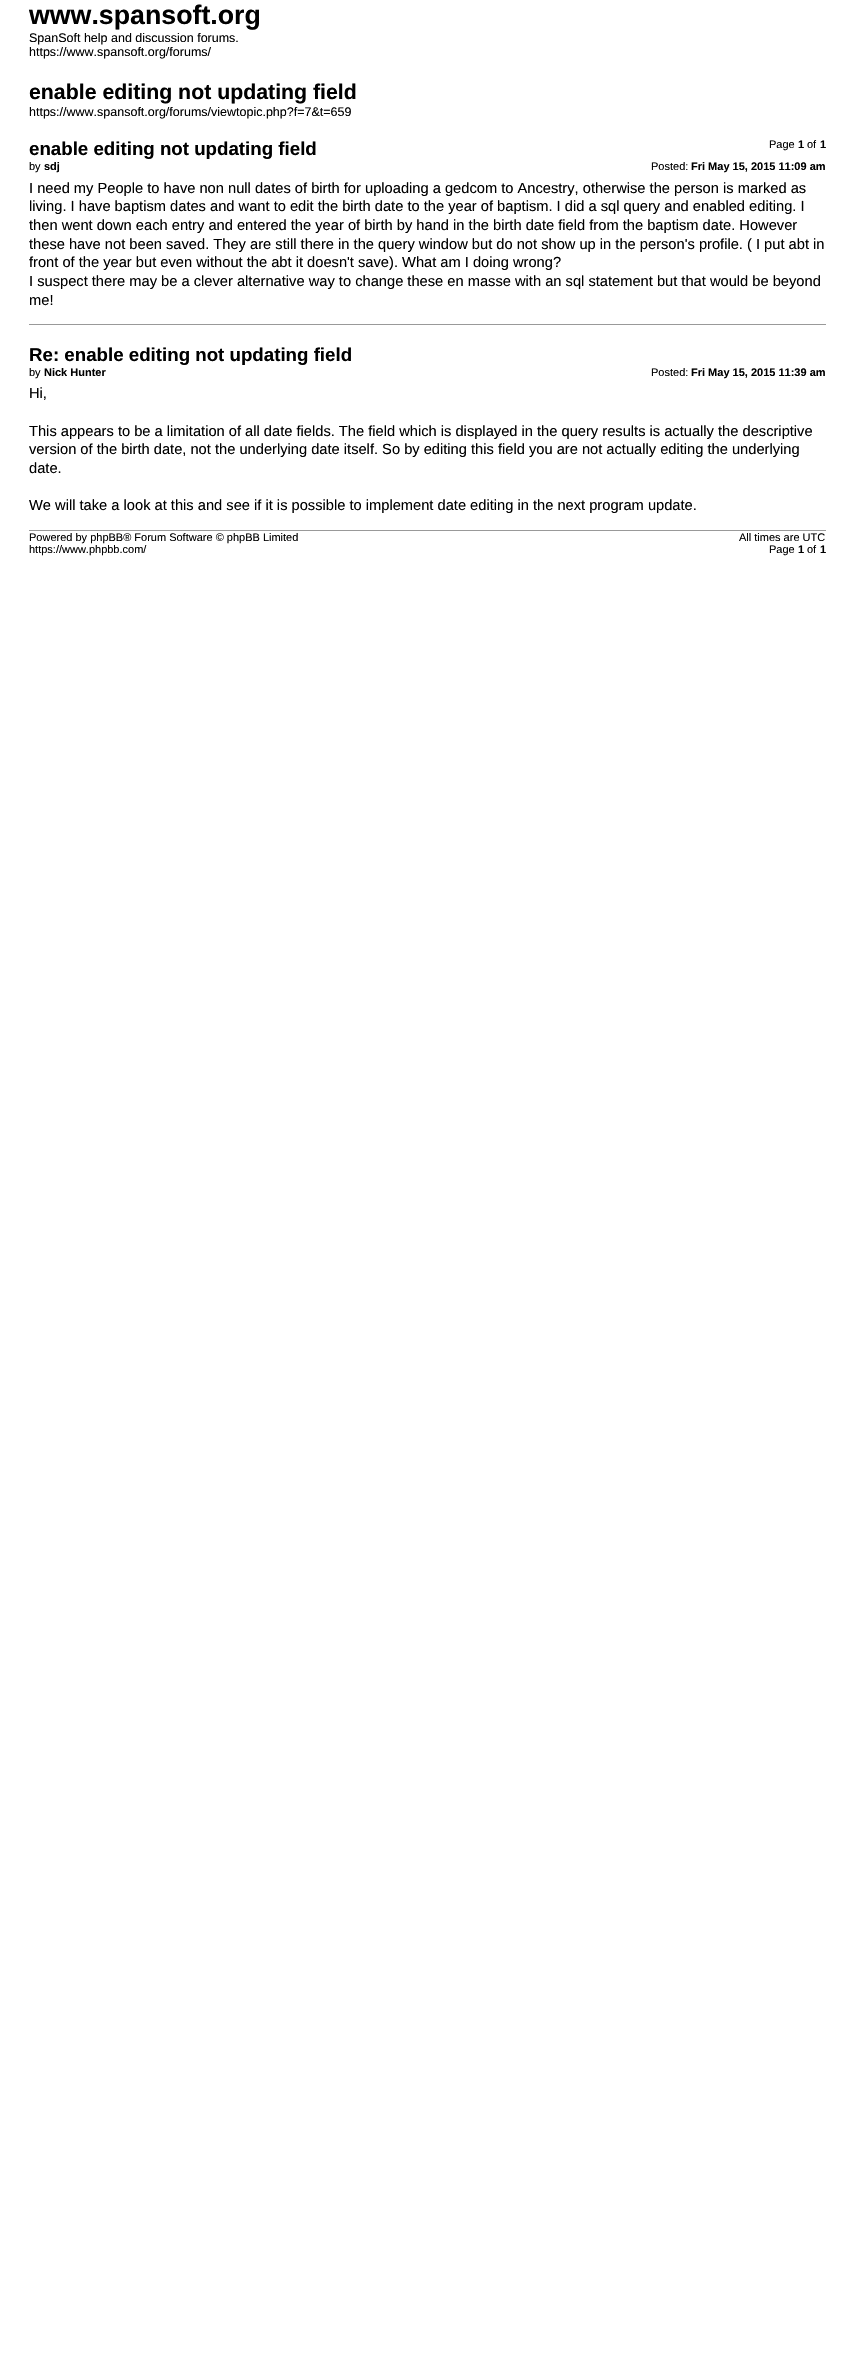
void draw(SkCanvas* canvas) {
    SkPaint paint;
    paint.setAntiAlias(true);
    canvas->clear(0xFFFFFFFF);
    SkFont font1(fontMgr->matchFamilyStyle("Liberation Sans", SkFontStyle::Bold()), 26.75f);
    font1.setSubpixel(true);
    paint.setColor(0xFF000000);
    canvas->drawString("www.spansoft.org", 29, 24, font1, paint);
    SkFont font2(fontMgr->matchFamilyStyle("Liberation Sans", SkFontStyle::Normal()), 12.5f);
    font2.setSubpixel(true);
    canvas->drawString("SpanSoft help and discussion forums.", 29, 42, font2, paint);
    canvas->drawString("https://www.spansoft.org/forums/", 29, 56, font2, paint);
    SkFont font3(fontMgr->matchFamilyStyle("Liberation Sans", SkFontStyle::Bold()), 21.3f);
    font3.setSubpixel(true);
    canvas->drawString("enable editing not updating field", 29, 99, font3, paint);
    canvas->drawString("https://www.spansoft.org/forums/viewtopic.php?f=7&t=659", 29, 116, font2, paint);
    SkFont font4(fontMgr->matchFamilyStyle("Liberation Sans", SkFontStyle::Normal()), 11);
    font4.setSubpixel(true);
    canvas->drawString("Page", 769, 148, font4, paint);
    SkFont font5(fontMgr->matchFamilyStyle("Liberation Sans", SkFontStyle::Bold()), 11);
    font5.setSubpixel(true);
    canvas->drawString("1", 798, 148, font5, paint);
    canvas->drawString("of", 807, 148, font4, paint);
    canvas->drawString("1", 820, 148, font5, paint);
    SkFont font6(fontMgr->matchFamilyStyle("Liberation Sans", SkFontStyle::Bold()), 18.7f);
    font6.setSubpixel(true);
    canvas->drawString("enable editing not updating field", 29, 155, font6, paint);
    canvas->drawString("by", 29, 170, font4, paint);
    canvas->drawString("sdj", 44, 170, font5, paint);
    canvas->drawString("Posted:", 651, 170, font4, paint);
    canvas->drawString("Fri May 15, 2015 11:09 am", 691, 170, font5, paint);
    SkFont font7(fontMgr->matchFamilyStyle("Liberation Sans", SkFontStyle::Normal()), 14.67f);
    font7.setSubpixel(true);
    canvas->drawString("I need my People to have non null dates of birth for uploading a gedcom to Ancestry, otherwise the person is marked as", 29, 193, font7, paint);
    canvas->drawString("living. I have baptism dates and want to edit the birth date to the year of baptism. I did a sql query and enabled editing. I", 29, 211, font7, paint);
    canvas->drawString("then went down each entry and entered the year of birth by hand in the birth date field from the baptism date. However", 29, 230, font7, paint);
    canvas->drawString("these have not been saved. They are still there in the query window but do not show up in the person's profile. ( I put abt in", 29, 249, font7, paint);
    canvas->drawString("front of the year but even without the abt it doesn't save). What am I doing wrong?", 29, 267, font7, paint);
    canvas->drawString("I suspect there may be a clever alternative way to change these en masse with an sql statement but that would be beyond", 29, 286, font7, paint);
    canvas->drawString("me!", 29, 305, font7, paint);
    paint.setColor(0xFF999999);
    canvas->drawRect(SkRect::MakeXYWH(29, 324, 797, 1), paint);
    paint.setColor(0xFF000000);
    canvas->drawString("Re: enable editing not updating field", 29, 361, font6, paint);
    canvas->drawString("by", 29, 376, font4, paint);
    canvas->drawString("Nick Hunter", 44, 376, font5, paint);
    canvas->drawString("Posted:", 651, 376, font4, paint);
    canvas->drawString("Fri May 15, 2015 11:39 am", 691, 376, font5, paint);
    canvas->drawString("Hi,", 29, 398, font7, paint);
    canvas->drawString("This appears to be a limitation of all date fields. The field which is displayed in the query results is actually the descriptive", 29, 436, font7, paint);
    canvas->drawString("version of the birth date, not the underlying date itself. So by editing this field you are not actually editing the underlying", 29, 454, font7, paint);
    canvas->drawString("date.", 29, 473, font7, paint);
    canvas->drawString("We will take a look at this and see if it is possible to implement date editing in the next program update.", 29, 510, font7, paint);
    paint.setColor(0xFF999999);
    canvas->drawRect(SkRect::MakeXYWH(29, 530, 797, 1), paint);
    paint.setColor(0xFF000000);
    canvas->drawString("Powered by phpBB® Forum Software © phpBB Limited", 29, 541, font4, paint);
    canvas->drawString("https://www.phpbb.com/", 29, 553, font4, paint);
    canvas->drawString("All times are UTC", 739, 541, font4, paint);
    canvas->drawString("Page", 769, 553, font4, paint);
    canvas->drawString("1", 798, 553, font5, paint);
    canvas->drawString("of", 807, 553, font4, paint);
    canvas->drawString("1", 820, 553, font5, paint);
}
